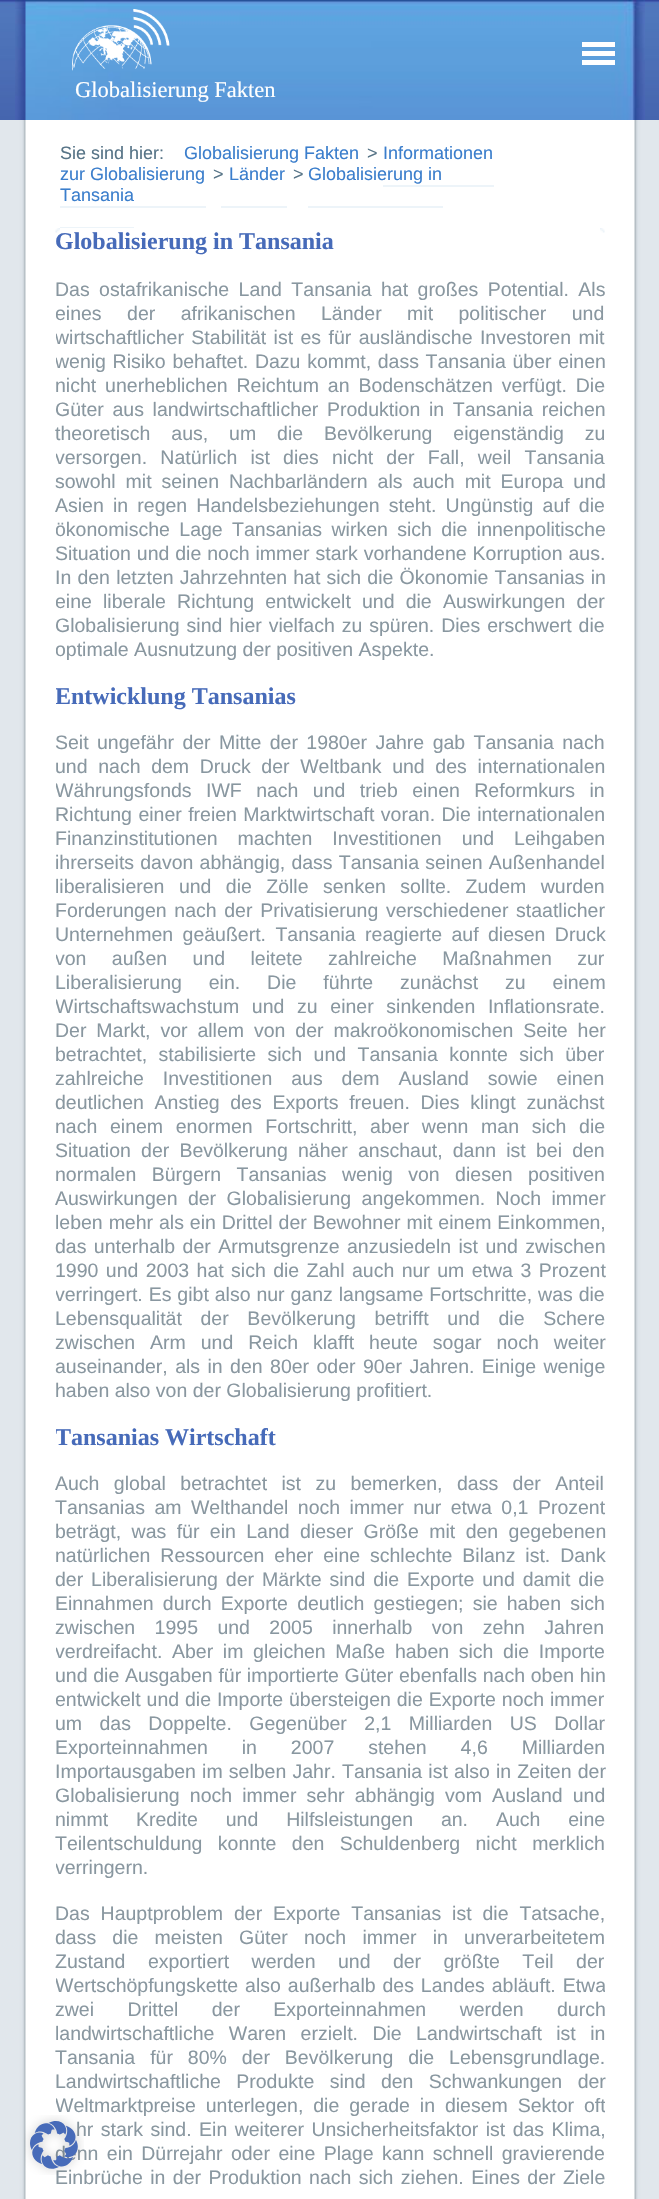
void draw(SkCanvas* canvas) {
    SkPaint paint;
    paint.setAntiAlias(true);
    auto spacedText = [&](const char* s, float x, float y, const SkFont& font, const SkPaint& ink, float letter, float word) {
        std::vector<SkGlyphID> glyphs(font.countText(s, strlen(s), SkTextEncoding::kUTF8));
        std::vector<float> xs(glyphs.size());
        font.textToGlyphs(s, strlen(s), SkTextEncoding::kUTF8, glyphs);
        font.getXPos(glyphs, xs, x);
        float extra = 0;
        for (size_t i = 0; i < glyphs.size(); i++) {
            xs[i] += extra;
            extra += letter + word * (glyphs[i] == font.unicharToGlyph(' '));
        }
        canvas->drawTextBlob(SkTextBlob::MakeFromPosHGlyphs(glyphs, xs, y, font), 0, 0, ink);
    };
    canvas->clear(0xFFE1E7EC);
    canvas->drawImageRect(SkImages::DeferredFromEncodedData(SkData::MakeFromFileName("img2.png")), SkRect::MakeXYWH(0, 0, 659, 120), SkSamplingOptions());
    canvas->drawImageRect(SkImages::DeferredFromEncodedData(SkData::MakeFromFileName("img3.png")), SkRect::MakeXYWH(25, 0, 620, 120), SkSamplingOptions());
    paint.setColor(0xFFFFFFFF);
    canvas->drawRect(SkRect::MakeXYWH(582, 42, 33, 5), paint);
    canvas->drawRect(SkRect::MakeXYWH(582, 51, 33, 5), paint);
    canvas->drawRect(SkRect::MakeXYWH(582, 60, 33, 5), paint);
    canvas->drawRect(SkRect::MakeXYWH(25, 120, 610, 2079), paint);
    canvas->drawImageRect(SkImages::DeferredFromEncodedData(SkData::MakeFromFileName("img7.png")), SkRect::MakeXYWH(15, 120, 11, 2079), SkSamplingOptions());
    canvas->save();
    canvas->clipRect(SkRect::MakeXYWH(56, 228, 549, 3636));
    SkFont font1(fontMgr->matchFamilyStyle("Liberation Sans", SkFontStyle::Normal()), 19.5f);
    font1.setSubpixel(true);
    paint.setColor(0xFF8997A0);
    spacedText("Weltmarktpreise unterlegen, die gerade in diesem Sektor oft", 55, 2112, font1, paint, 0, 4.5f);
    canvas->restore();
    spacedText("hr stark sind. Ein weiterer Unsicherheitsfaktor ist das Klima,", 76, 2136, font1, paint, 0, 2);
    spacedText("denn ein Dürrejahr oder eine Plage kann schnell gravierende", 55, 2160, font1, paint, 0, 3);
    spacedText("Einbrüche in der Produktion nach sich ziehen. Eines der Ziele", 55, 2184, font1, paint, 0, 2);
    canvas->drawImageRect(SkImages::DeferredFromEncodedData(SkData::MakeFromFileName("img1.png")), SkRect::MakeXYWH(24, 2115, 60, 60), SkSamplingOptions());
    canvas->drawImageRect(SkImages::DeferredFromEncodedData(SkData::MakeFromFileName("img4.png")), SkRect::MakeXYWH(15, 0, 11, 120), SkSamplingOptions());
    canvas->drawImageRect(SkImages::DeferredFromEncodedData(SkData::MakeFromFileName("img5.png")), SkRect::MakeXYWH(72, 9, 98, 62), SkSamplingOptions());
    SkFont font2(fontMgr->matchFamilyStyle("Liberation Serif", SkFontStyle::Normal()), 22.5f);
    font2.setSubpixel(true);
    paint.setColor(0xFFFFFFFF);
    canvas->drawString("Globalisierung Fakten", 75, 97, font2, paint);
    canvas->drawImageRect(SkImages::DeferredFromEncodedData(SkData::MakeFromFileName("img6.png")), SkRect::MakeXYWH(634, 120, 11, 2079), SkSamplingOptions());
    SkFont font3(fontMgr->matchFamilyStyle("Liberation Sans", SkFontStyle::Normal()), 18);
    font3.setSubpixel(true);
    paint.setColor(0xFF577487);
    canvas->drawString("Sie sind hier:", 60, 159, font3, paint);
    paint.setColor(0xFF3B7ECC);
    canvas->drawString("Globalisierung Fakten", 184, 159, font3, paint);
    paint.setColor(0xFF577487);
    canvas->drawString(">", 367, 159, font3, paint);
    paint.setColor(0xFF3B7ECC);
    canvas->drawString("Informationen", 383, 159, font3, paint);
    paint.setColor(0xFFEDF4F9);
    canvas->drawRect(SkRect::MakeXYWH(383, 185, 111, 2), paint);
    paint.setColor(0xFF3B7ECC);
    canvas->drawString("zur Globalisierung", 60, 180, font3, paint);
    paint.setColor(0xFFEDF4F9);
    canvas->drawRect(SkRect::MakeXYWH(60, 206, 146, 2), paint);
    paint.setColor(0xFF577487);
    canvas->drawString(">", 213, 180, font3, paint);
    paint.setColor(0xFF3B7ECC);
    canvas->drawString("Länder", 229, 180, font3, paint);
    paint.setColor(0xFFEDF4F9);
    canvas->drawRect(SkRect::MakeXYWH(221, 206, 66, 2), paint);
    paint.setColor(0xFF577487);
    canvas->drawString(">", 293, 180, font3, paint);
    paint.setColor(0xFF3B7ECC);
    canvas->drawString("Globalisierung in", 308, 180, font3, paint);
    paint.setColor(0xFFEDF4F9);
    canvas->drawRect(SkRect::MakeXYWH(308, 206, 135, 2), paint);
    paint.setColor(0xFF3B7ECC);
    canvas->drawString("Tansania", 60, 201, font3, paint);
    paint.setColor(0xFFEDF4F9);
    canvas->drawRect(SkRect::MakeXYWH(60, 227, 74, 1), paint);
    canvas->drawImageRect(SkImages::DeferredFromEncodedData(SkData::MakeFromFileName("img8.png")), SkRect::MakeXYWH(600, 228, 5, 5), SkSamplingOptions());
    canvas->drawImageRect(SkImages::DeferredFromEncodedData(SkData::MakeFromFileName("img9.png")), SkRect::MakeXYWH(55, 228, 5, 5), SkSamplingOptions());
    SkFont font4(fontMgr->matchFamilyStyle("Liberation Serif", SkFontStyle::Bold()), 24);
    font4.setSubpixel(true);
    paint.setColor(0xFF476BB9);
    canvas->drawString("Globalisierung in Tansania", 55, 249, font4, paint);
    paint.setColor(0xFF8997A0);
    spacedText("Das ostafrikanische Land Tansania hat großes Potential. Als", 55, 296, font1, paint, 0, 4);
    canvas->save();
    canvas->clipRect(SkRect::MakeXYWH(56, 228, 549, 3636));
    spacedText("eines der afrikanischen Länder mit politischer und", 55, 320, font1, paint, 0, 20);
    spacedText("wirtschaftlicher Stabilität ist es für ausländische Investoren mit", 55, 344, font1, paint, 0, 2);
    spacedText("wenig Risiko behaftet. Dazu kommt, dass Tansania über einen", 55, 368, font1, paint, 0, 1.25f);
    canvas->restore();
    spacedText("nicht unerheblichen Reichtum an Bodenschätzen verfügt. Die", 55, 392, font1, paint, 0, 3.5f);
    spacedText("Güter aus landwirtschaftlicher Produktion in Tansania reichen", 55, 416, font1, paint, 0, 3.25f);
    spacedText("theoretisch aus, um die Bevölkerung eigenständig zu", 55, 440, font1, paint, 0, 15.5f);
    canvas->save();
    canvas->clipRect(SkRect::MakeXYWH(56, 228, 549, 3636));
    spacedText("versorgen. Natürlich ist dies nicht der Fall, weil Tansania", 55, 464, font1, paint, 0, 7.75f);
    canvas->restore();
    spacedText("sowohl mit seinen Nachbarländern als auch mit Europa und", 55, 488, font1, paint, 0, 4.5f);
    spacedText("Asien in regen Handelsbeziehungen steht. Ungünstig auf die", 55, 512, font1, paint, 0, 3.75f);
    canvas->save();
    canvas->clipRect(SkRect::MakeXYWH(56, 228, 549, 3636));
    spacedText("ökonomische Lage Tansanias wirken sich die innenpolitische", 55, 536, font1, paint, 0, 4);
    canvas->restore();
    spacedText("Situation und die noch immer stark vorhandene Korruption aus.", 55, 560, font1, paint, 0, 0.5f);
    spacedText("In den letzten Jahrzehnten hat sich die Ökonomie Tansanias in", 55, 584, font1, paint, 0, 0.75f);
    canvas->save();
    canvas->clipRect(SkRect::MakeXYWH(56, 228, 549, 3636));
    spacedText("eine liberale Richtung entwickelt und die Auswirkungen der", 55, 608, font1, paint, 0, 5.75f);
    canvas->restore();
    spacedText("Globalisierung sind hier vielfach zu spüren. Dies erschwert die", 55, 632, font1, paint, 0, 1.5f);
    canvas->save();
    canvas->clipRect(SkRect::MakeXYWH(56, 228, 549, 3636));
    canvas->drawString("optimale Ausnutzung der positiven Aspekte.", 55, 656, font1, paint);
    paint.setColor(0xFF476BB9);
    canvas->drawString("Entwicklung Tansanias", 55, 704, font4, paint);
    canvas->restore();
    paint.setColor(0xFF8997A0);
    spacedText("Seit ungefähr der Mitte der 1980er Jahre gab Tansania nach", 55, 749, font1, paint, 0, 3);
    spacedText("und nach dem Druck der Weltbank und des internationalen", 55, 773, font1, paint, 0, 5.25f);
    canvas->save();
    canvas->clipRect(SkRect::MakeXYWH(56, 228, 549, 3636));
    spacedText("Währungsfonds IWF nach und trieb einen Reformkurs in", 55, 797, font1, paint, 0, 9);
    canvas->restore();
    spacedText("Richtung einer freien Marktwirtschaft voran. Die internationalen", 55, 821, font1, paint, 0, 1);
    spacedText("Finanzinstitutionen machten Investitionen und Leihgaben", 55, 845, font1, paint, 0, 14.5f);
    spacedText("ihrerseits davon abhängig, dass Tansania seinen Außenhandel", 55, 869, font1, paint, 0, 0.75f);
    spacedText("liberalisieren und die Zölle senken sollte. Zudem wurden", 55, 893, font1, paint, 0, 9);
    spacedText("Forderungen nach der Privatisierung verschiedener staatlicher", 55, 917, font1, paint, 0, 2.25f);
    spacedText("Unternehmen geäußert. Tansania reagierte auf diesen Druck", 55, 941, font1, paint, 0, 4);
    canvas->save();
    canvas->clipRect(SkRect::MakeXYWH(56, 228, 549, 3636));
    spacedText("von außen und leitete zahlreiche Maßnahmen zur", 55, 965, font1, paint, 0, 20);
    canvas->restore();
    spacedText("Liberalisierung ein. Die führte zunächst zu einem", 55, 989, font1, paint, 0, 21.5f);
    canvas->save();
    canvas->clipRect(SkRect::MakeXYWH(56, 228, 549, 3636));
    spacedText("Wirtschaftswachstum und zu einer sinkenden Inflationsrate.", 55, 1013, font1, paint, 0, 7.25f);
    canvas->restore();
    spacedText("Der Markt, vor allem von der makroökonomischen Seite her", 55, 1037, font1, paint, 0, 4.5f);
    spacedText("betrachtet, stabilisierte sich und Tansania konnte sich über", 55, 1061, font1, paint, 0, 6);
    spacedText("zahlreiche Investitionen aus dem Ausland sowie einen", 55, 1085, font1, paint, 0, 13.5f);
    spacedText("deutlichen Anstieg des Exports freuen. Dies klingt zunächst", 55, 1109, font1, paint, 0, 5.25f);
    spacedText("nach einem enormen Fortschritt, aber wenn man sich die", 55, 1133, font1, paint, 0, 7.25f);
    spacedText("Situation der Bevölkerung näher anschaut, dann ist bei den", 55, 1157, font1, paint, 0, 4.75f);
    spacedText("normalen Bürgern Tansanias wenig von diesen positiven", 55, 1181, font1, paint, 0, 10);
    spacedText("Auswirkungen der Globalisierung angekommen. Noch immer", 55, 1205, font1, paint, 0, 5);
    spacedText("leben mehr als ein Drittel der Bewohner mit einem Einkommen,", 55, 1229, font1, paint, 0, 0.5f);
    spacedText("das unterhalb der Armutsgrenze anzusiedeln ist und zwischen", 55, 1253, font1, paint, 0, 2);
    spacedText("1990 und 2003 hat sich die Zahl auch nur um etwa 3 Prozent", 55, 1277, font1, paint, 0, 2);
    canvas->save();
    canvas->clipRect(SkRect::MakeXYWH(56, 228, 549, 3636));
    spacedText("verringert. Es gibt also nur ganz langsame Fortschritte, was die", 55, 1301, font1, paint, 0, 0.5f);
    canvas->restore();
    spacedText("Lebensqualität der Bevölkerung betrifft und die Schere", 55, 1325, font1, paint, 0, 13.25f);
    spacedText("zwischen Arm und Reich klafft heute sogar noch weiter", 55, 1349, font1, paint, 0, 9.5f);
    spacedText("auseinander, als in den 80er oder 90er Jahren. Einige wenige", 55, 1373, font1, paint, 0, 2);
    canvas->drawString("haben also von der Globalisierung profitiert.", 55, 1397, font1, paint);
    canvas->save();
    canvas->clipRect(SkRect::MakeXYWH(56, 228, 549, 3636));
    paint.setColor(0xFF476BB9);
    canvas->drawString("Tansanias Wirtschaft", 55, 1445, font4, paint);
    canvas->restore();
    paint.setColor(0xFF8997A0);
    spacedText("Auch global betrachtet ist zu bemerken, dass der Anteil", 55, 1490, font1, paint, 0, 9);
    spacedText("Tansanias am Welthandel noch immer nur etwa 0,1 Prozent", 55, 1514, font1, paint, 0, 4);
    spacedText("beträgt, was für ein Land dieser Größe mit den gegebenen", 55, 1538, font1, paint, 0, 5);
    spacedText("natürlichen Ressourcen eher eine schlechte Bilanz ist. Dank", 55, 1562, font1, paint, 0, 4.5f);
    spacedText("der Liberalisierung der Märkte sind die Exporte und damit die", 55, 1586, font1, paint, 0, 2.5f);
    spacedText("Einnahmen durch Exporte deutlich gestiegen; sie haben sich", 55, 1610, font1, paint, 0, 3.75f);
    spacedText("zwischen 1995 und 2005 innerhalb von zehn Jahren", 55, 1634, font1, paint, 0, 14);
    canvas->save();
    canvas->clipRect(SkRect::MakeXYWH(56, 228, 549, 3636));
    spacedText("verdreifacht. Aber im gleichen Maße haben sich die Importe", 55, 1658, font1, paint, 0, 4.25f);
    canvas->restore();
    spacedText("und die Ausgaben für importierte Güter ebenfalls nach oben hin", 55, 1682, font1, paint, 0, 0.25f);
    canvas->save();
    canvas->clipRect(SkRect::MakeXYWH(56, 228, 549, 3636));
    spacedText("entwickelt und die Importe übersteigen die Exporte noch immer", 55, 1706, font1, paint, 0, 0.5f);
    canvas->restore();
    spacedText("um das Doppelte. Gegenüber 2,1 Milliarden US Dollar", 55, 1730, font1, paint, 0, 12);
    spacedText("Exporteinnahmen in 2007 stehen 4,6 Milliarden", 55, 1754, font1, paint, 0, 28.5f);
    spacedText("Importausgaben im selben Jahr. Tansania ist also in Zeiten der", 55, 1778, font1, paint, 0, 0.75f);
    spacedText("Globalisierung noch immer sehr abhängig vom Ausland und", 55, 1802, font1, paint, 0, 4.75f);
    spacedText("nimmt Kredite und Hilfsleistungen an. Auch eine", 55, 1826, font1, paint, 0, 22.5f);
    spacedText("Teilentschuldung konnte den Schuldenberg nicht merklich", 55, 1850, font1, paint, 0, 10);
    canvas->save();
    canvas->clipRect(SkRect::MakeXYWH(56, 228, 549, 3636));
    canvas->drawString("verringern.", 55, 1874, font1, paint);
    canvas->restore();
    spacedText("Das Hauptproblem der Exporte Tansanias ist die Tatsache,", 55, 1920, font1, paint, 0, 5.5f);
    spacedText("dass die meisten Güter noch immer in unverarbeitetem", 55, 1944, font1, paint, 0, 10.75f);
    spacedText("Zustand exportiert werden und der größte Teil der", 55, 1968, font1, paint, 0, 17);
    canvas->save();
    canvas->clipRect(SkRect::MakeXYWH(56, 228, 549, 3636));
    spacedText("Wertschöpfungskette also außerhalb des Landes abläuft. Etwa", 55, 1992, font1, paint, 0, 1.5f);
    canvas->restore();
    spacedText("zwei Drittel der Exporteinnahmen werden durch", 55, 2016, font1, paint, 0, 28);
    spacedText("landwirtschaftliche Waren erzielt. Die Landwirtschaft ist in", 55, 2040, font1, paint, 0, 9);
    spacedText("Tansania für 80% der Bevölkerung die Lebensgrundlage.", 55, 2064, font1, paint, 0, 9.5f);
    spacedText("Landwirtschaftliche Produkte sind den Schwankungen der", 55, 2088, font1, paint, 0, 10);
}
